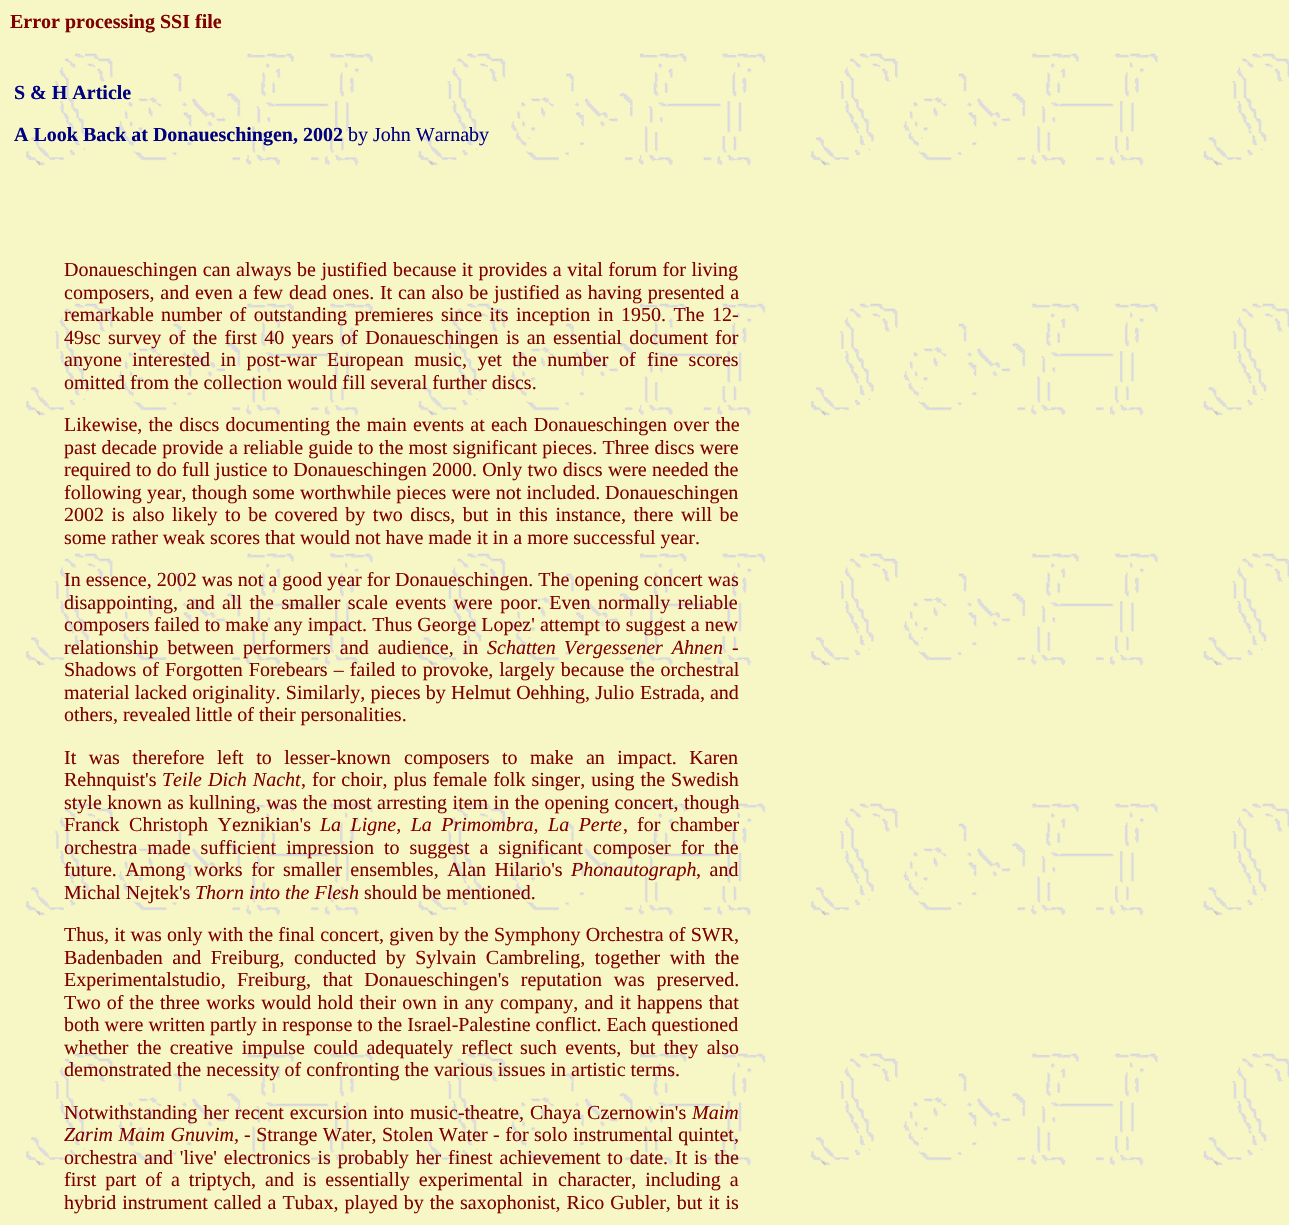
void draw(SkCanvas* canvas) {
    SkPaint paint;
    paint.setAntiAlias(true);
    auto spacedText = [&](const char* s, float x, float y, const SkFont& font, const SkPaint& ink, float letter, float word) {
        std::vector<SkGlyphID> glyphs(font.countText(s, strlen(s), SkTextEncoding::kUTF8));
        std::vector<float> xs(glyphs.size());
        font.textToGlyphs(s, strlen(s), SkTextEncoding::kUTF8, glyphs);
        font.getXPos(glyphs, xs, x);
        float extra = 0;
        for (size_t i = 0; i < glyphs.size(); i++) {
            xs[i] += extra;
            extra += letter + word * (glyphs[i] == font.unicharToGlyph(' '));
        }
        canvas->drawTextBlob(SkTextBlob::MakeFromPosHGlyphs(glyphs, xs, y, font), 0, 0, ink);
    };
    canvas->clear(0xFFFFFFFF);
    canvas->drawImageRect(SkImages::DeferredFromEncodedData(SkData::MakeFromFileName("img1.png")), SkRect::MakeXYWH(0, 0, 1289, 1225), SkSamplingOptions());
    SkFont font1(fontMgr->matchFamilyStyle("Liberation Serif", SkFontStyle::Bold()), 20);
    font1.setSubpixel(true);
    paint.setColor(0xFF800000);
    canvas->drawString("Error processing SSI file", 10, 28, font1, paint);
    paint.setColor(0xFF000080);
    canvas->drawString("S & H Article", 14, 99, font1, paint);
    canvas->drawString("A Look Back at Donaueschingen, 2002", 14, 141, font1, paint);
    SkFont font2(fontMgr->matchFamilyStyle("Liberation Serif", SkFontStyle::Normal()), 20);
    font2.setSubpixel(true);
    canvas->drawString("by John Warnaby", 348, 141, font2, paint);
    paint.setColor(0xFF800000);
    spacedText("Donaueschingen can always be justified", 64, 276, font2, paint, 0, 0.5f);
    spacedText("because it provides a vital forum for living", 393, 276, font2, paint, 0, 0.5f);
    spacedText("composers, and even a few", 64, 299, font2, paint, 0, 0.75f);
    spacedText("dead ones. It can also be justified as having presented a", 289, 299, font2, paint, 0, 0.75f);
    canvas->drawString("remarkable", 64, 321, font2, paint);
    spacedText("number of outstanding premieres since its inception in 1950. The 12-", 161, 321, font2, paint, 0, 2.5f);
    canvas->drawString("49sc", 64, 344, font2, paint);
    spacedText("survey of the first 40 years of Donaueschingen is an essential document", 108, 344, font2, paint, 0, 2.4f);
    canvas->drawString("for", 715, 344, font2, paint);
    spacedText("anyone interested in post-war European music, yet the number of", 64, 366, font2, paint, 0, 5.5f);
    spacedText("fine scores", 647, 366, font2, paint, 0, 5.5f);
    canvas->drawString("omitted from the collection would fill several further discs.", 64, 389, font2, paint);
    spacedText("Likewise, the discs documenting", 64, 431, font2, paint, 0, 1.25f);
    spacedText("the main events at each Donaueschingen over the", 336, 431, font2, paint, 0, 1.25f);
    spacedText("past decade provide", 64, 454, font2, paint, 0, 0.25f);
    spacedText("a reliable guide to the most significant pieces. Three discs were", 229, 454, font2, paint, 0, 0.25f);
    canvas->drawString("required", 64, 476, font2, paint);
    spacedText("to do full justice to Donaueschingen 2000. Only two discs were needed", 136, 476, font2, paint, 0, 0.25f);
    canvas->drawString("the", 714, 476, font2, paint);
    spacedText("following year, though some worthwhile pieces were not included.", 64, 499, font2, paint, 0, 0.25f);
    canvas->drawString("Donaueschingen", 605, 499, font2, paint);
    spacedText("2002 is also likely to be covered by two discs, but in", 64, 521, font2, paint, 0, 2.5f);
    spacedText("this instance, there will be", 519, 521, font2, paint, 0, 2.5f);
    canvas->drawString("some rather weak scores that would not have made it in a more successful year.", 64, 544, font2, paint);
    canvas->drawString("In essence, 2002 was not a good year for Donaueschingen. The opening concert was", 64, 586, font2, paint);
    spacedText("disappointing, and", 64, 609, font2, paint, 0, 3);
    spacedText("all the smaller scale events were poor. Even normally reliable", 222, 609, font2, paint, 0, 2.5f);
    canvas->drawString("composers", 64, 631, font2, paint);
    spacedText("failed to make any impact. Thus George Lopez' attempt to suggest a new", 154, 631, font2, paint, 0, 0.1f);
    spacedText("relationship between performers and audience, in", 64, 654, font2, paint, 0, 4);
    SkFont font3(fontMgr->matchFamilyStyle("Liberation Serif", SkFontStyle::Italic()), 20);
    font3.setSubpixel(true);
    canvas->drawString("Schatten", 487, 654, font3, paint);
    spacedText("Vergessener Ahnen", 564, 654, font3, paint, 0, 4);
    canvas->drawString("-", 732, 654, font2, paint);
    spacedText("Shadows of", 64, 676, font2, paint, 0, 1);
    spacedText("Forgotten Forebears – failed to provoke, largely because the orchestral", 165, 676, font2, paint, 0, 1);
    spacedText("material lacked originality. Similarly, pieces by Helmut Oehhing, Julio", 64, 699, font2, paint, 0, 0.25f);
    canvas->drawString("Estrada, and", 640, 699, font2, paint);
    canvas->drawString("others, revealed little of their personalities.", 64, 721, font2, paint);
    spacedText("It was therefore left to lesser-known", 64, 764, font2, paint, 0, 7.5f);
    spacedText("composers to make an impact. Karen", 404, 764, font2, paint, 0, 7.5f);
    canvas->drawString("Rehnquist's", 64, 786, font2, paint);
    spacedText("Teile Dich Nacht", 162, 786, font3, paint, 0, 1);
    canvas->drawString(",", 301, 786, font2, paint);
    spacedText("for choir, plus female folk singer, using the Swedish", 312, 786, font2, paint, 0, 1);
    spacedText("style known as", 64, 809, font2, paint, 0, 0.5f);
    spacedText("kullning, was the most arresting item in the opening concert, though", 189, 809, font2, paint, 0, 0.5f);
    spacedText("Franck Christoph Yeznikian's", 64, 831, font2, paint, 0, 4.5f);
    spacedText("La Ligne, La Primombra, La Perte", 320, 831, font3, paint, 0, 4.5f);
    canvas->drawString(",", 623, 831, font2, paint);
    spacedText("for chamber", 637, 831, font2, paint, 0, 5);
    spacedText("orchestra made sufficient impression to suggest a significant", 64, 854, font2, paint, 0, 5);
    spacedText("composer for the", 593, 854, font2, paint, 0, 5);
    spacedText("future. Among works for smaller ensembles, Alan Hilario's", 64, 876, font2, paint, 0, 3.5f);
    canvas->drawString("Phonautograph", 571, 876, font3, paint);
    spacedText(", and", 696, 876, font2, paint, 0, 3.5f);
    canvas->drawString("Michal Nejtek's", 64, 899, font2, paint);
    canvas->drawString("Thorn into the Flesh", 195, 899, font3, paint);
    canvas->drawString("should be mentioned.", 364, 899, font2, paint);
    spacedText("Thus, it was only with the final concert, given by the Symphony Orchestra of SWR,", 64, 941, font2, paint, 0, 0.25f);
    spacedText("Badenbaden and Freiburg,", 64, 964, font2, paint, 0, 4.5f);
    spacedText("conducted by Sylvain Cambreling, together with the", 294, 964, font2, paint, 0, 4.5f);
    canvas->drawString("Experimentalstudio,", 64, 986, font2, paint);
    spacedText("Freiburg, that Donaueschingen's reputation was preserved.", 237, 986, font2, paint, 0, 6.75f);
    spacedText("Two of the", 64, 1009, font2, paint, 0, 1);
    spacedText("three works would hold their own in any company, and it happens that", 160, 1009, font2, paint, 0, 1.25f);
    canvas->drawString("both were written partly in response to the Israel-Palestine conflict. Each questioned", 64, 1031, font2, paint);
    spacedText("whether the creative impulse could adequately reflect", 64, 1054, font2, paint, 0, 3.5f);
    spacedText("such events, but they also", 520, 1054, font2, paint, 0, 3.5f);
    canvas->drawString("demonstrated the necessity of confronting the various issues in artistic terms.", 64, 1076, font2, paint);
    spacedText("Notwithstanding her recent excursion", 64, 1119, font2, paint, 0, 1);
    spacedText("into music-theatre, Chaya Czernowin's", 373, 1119, font2, paint, 0, 1);
    canvas->drawString("Maim", 692, 1119, font3, paint);
    spacedText("Zarim Maim Gnuvim", 64, 1141, font3, paint, 0, 0.5f);
    canvas->drawString(",", 234, 1141, font2, paint);
    spacedText("- Strange Water, Stolen Water - for solo instrumental quintet,", 244, 1141, font2, paint, 0, 0.5f);
    canvas->drawString("orchestra", 64, 1164, font2, paint);
    spacedText("and 'live' electronics is probably her finest achievement to date. It", 144, 1164, font2, paint, 0, 1.9f);
    spacedText("is the", 694, 1164, font2, paint, 0, 2);
    spacedText("first part of a triptych, and is essentially experimental in", 64, 1186, font2, paint, 0, 4);
    spacedText("character, including a", 558, 1186, font2, paint, 0, 4);
    spacedText("hybrid instrument called a Tubax, played by the", 64, 1209, font2, paint, 0, 1);
    spacedText("saxophonist, Rico Gubler, but it is", 460, 1209, font2, paint, 0, 1);
}
